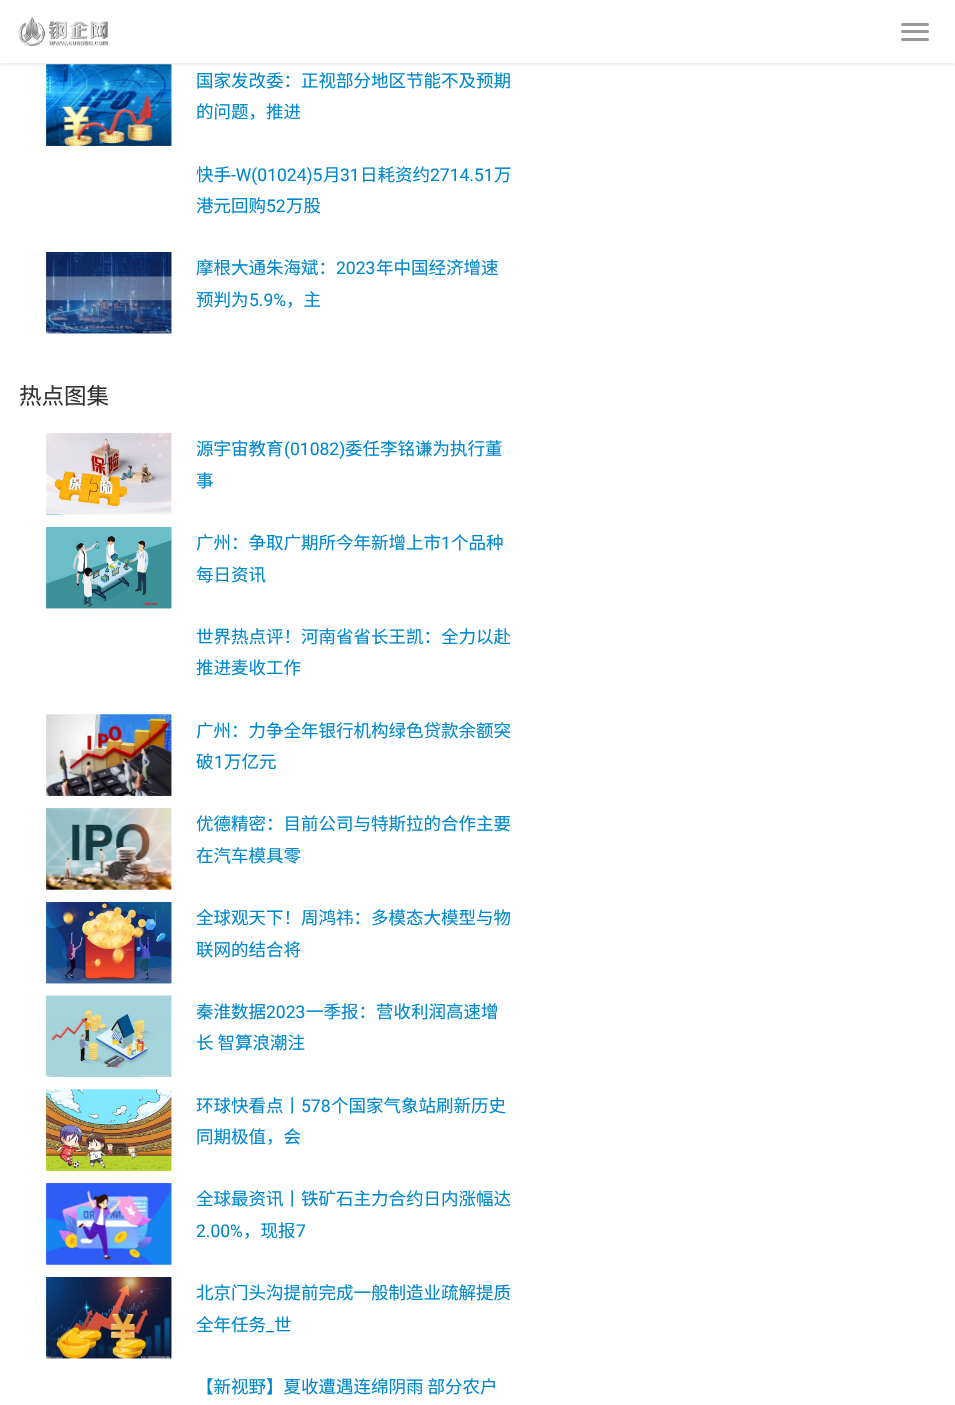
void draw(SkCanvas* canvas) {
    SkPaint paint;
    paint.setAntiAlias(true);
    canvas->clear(0xFFFFFFFF);
    canvas->drawImageRect(SkImages::DeferredFromEncodedData(SkData::MakeFromFileName("img2.png")), SkRect::MakeXYWH(46, 64, 126, 82), SkSamplingOptions());
    canvas->drawImageRect(SkImages::DeferredFromEncodedData(SkData::MakeFromFileName("img3.png")), SkRect::MakeXYWH(46, 64, 126, 82), SkSamplingOptions());
    paint.setColor(0x1A000000);
    paint.setMaskFilter(SkMaskFilter::MakeBlur(kNormal_SkBlurStyle, 2));
    canvas->drawRect(SkRect::MakeXYWH(-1, -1, 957, 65), paint);
    paint.setMaskFilter(nullptr);
    paint.setColor(0xFFFFFFFF);
    canvas->drawRect(SkRect::MakeXYWH(0, 0, 955, 63), paint);
    canvas->drawImageRect(SkImages::DeferredFromEncodedData(SkData::MakeFromFileName("img1.png")), SkRect::MakeXYWH(18, 17, 90, 30), SkSamplingOptions());
    paint.setColor(0xFF999999);
    canvas->drawRoundRect(SkRect::MakeXYWH(901, 23, 28, 3), 1.5f, 1.5f, paint);
    canvas->drawRoundRect(SkRect::MakeXYWH(901, 30, 28, 3), 1.5f, 1.5f, paint);
    canvas->drawRoundRect(SkRect::MakeXYWH(901, 38, 28, 3), 1.5f, 1.5f, paint);
    SkFont font1(fontMgr->matchFamilyStyle("Noto Sans CJK SC", SkFontStyle::Normal()), 17.5f);
    font1.setSubpixel(true);
    paint.setColor(0xFF0088CC);
    canvas->drawString("国家发改委：正视部分地区节能不及预期", 196, 87, font1, paint);
    canvas->drawString("的问题，推进", 196, 118, font1, paint);
    canvas->drawString("快手", 196, 181, font1, paint);
    SkFont font2(fontMgr->matchFamilyStyle("Roboto", SkFontStyle::Normal()), 17.5f);
    font2.setSubpixel(true);
    canvas->drawString("-W(01024)5", 231, 181, font2, paint);
    canvas->drawString("月", 323, 181, font1, paint);
    canvas->drawString("31", 340, 181, font2, paint);
    canvas->drawString("日耗资约", 360, 181, font1, paint);
    canvas->drawString("2714.51", 430, 181, font2, paint);
    canvas->drawString("万", 494, 181, font1, paint);
    canvas->drawString("港元回购", 196, 212, font1, paint);
    canvas->drawString("52", 266, 212, font2, paint);
    canvas->drawString("万股", 286, 212, font1, paint);
    canvas->drawImageRect(SkImages::DeferredFromEncodedData(SkData::MakeFromFileName("img4.png")), SkRect::MakeXYWH(46, 252, 126, 82), SkSamplingOptions());
    canvas->drawImageRect(SkImages::DeferredFromEncodedData(SkData::MakeFromFileName("img5.png")), SkRect::MakeXYWH(46, 252, 126, 82), SkSamplingOptions());
    canvas->drawString("摩根大通朱海斌：", 196, 274, font1, paint);
    canvas->drawString("2023", 336, 274, font2, paint);
    canvas->drawString("年中国经济增速", 376, 274, font1, paint);
    canvas->drawString("预判为", 196, 306, font1, paint);
    canvas->drawString("5.9%", 249, 306, font2, paint);
    canvas->drawString("，主", 286, 306, font1, paint);
    SkFont font3(fontMgr->matchFamilyStyle("Noto Sans CJK SC", SkFontStyle::Normal()), 22.5f);
    font3.setSubpixel(true);
    paint.setColor(0xFF333333);
    canvas->drawString("热点图集", 19, 404, font3, paint);
    canvas->drawImageRect(SkImages::DeferredFromEncodedData(SkData::MakeFromFileName("img6.png")), SkRect::MakeXYWH(46, 433, 126, 82), SkSamplingOptions());
    canvas->drawImageRect(SkImages::DeferredFromEncodedData(SkData::MakeFromFileName("img7.png")), SkRect::MakeXYWH(46, 433, 126, 82), SkSamplingOptions());
    paint.setColor(0xFF0088CC);
    canvas->drawString("源宇宙教育", 196, 455, font1, paint);
    canvas->drawString("(01082)", 284, 455, font2, paint);
    canvas->drawString("委任李铭谦为执行董", 345, 455, font1, paint);
    canvas->drawString("事", 196, 487, font1, paint);
    canvas->drawImageRect(SkImages::DeferredFromEncodedData(SkData::MakeFromFileName("img8.png")), SkRect::MakeXYWH(46, 527, 126, 82), SkSamplingOptions());
    canvas->drawImageRect(SkImages::DeferredFromEncodedData(SkData::MakeFromFileName("img9.png")), SkRect::MakeXYWH(46, 527, 126, 82), SkSamplingOptions());
    canvas->drawString("广州：争取广期所今年新增上市", 196, 549, font1, paint);
    canvas->drawString("1", 441, 549, font2, paint);
    canvas->drawString("个品种", 451, 549, font1, paint);
    canvas->drawString("每日资讯", 196, 581, font1, paint);
    canvas->drawString("世界热点评！河南省省长王凯：全力以赴", 196, 643, font1, paint);
    canvas->drawString("推进麦收工作", 196, 674, font1, paint);
    canvas->drawImageRect(SkImages::DeferredFromEncodedData(SkData::MakeFromFileName("img10.png")), SkRect::MakeXYWH(46, 714, 126, 82), SkSamplingOptions());
    canvas->drawImageRect(SkImages::DeferredFromEncodedData(SkData::MakeFromFileName("img11.png")), SkRect::MakeXYWH(46, 714, 126, 82), SkSamplingOptions());
    canvas->drawString("广州：力争全年银行机构绿色贷款余额突", 196, 737, font1, paint);
    canvas->drawString("破", 196, 768, font1, paint);
    canvas->drawString("1", 214, 768, font2, paint);
    canvas->drawString("万亿元", 224, 768, font1, paint);
    canvas->drawImageRect(SkImages::DeferredFromEncodedData(SkData::MakeFromFileName("img12.png")), SkRect::MakeXYWH(46, 808, 126, 82), SkSamplingOptions());
    canvas->drawImageRect(SkImages::DeferredFromEncodedData(SkData::MakeFromFileName("img13.png")), SkRect::MakeXYWH(46, 808, 126, 82), SkSamplingOptions());
    canvas->drawString("优德精密：目前公司与特斯拉的合作主要", 196, 830, font1, paint);
    canvas->drawString("在汽车模具零", 196, 862, font1, paint);
    canvas->drawImageRect(SkImages::DeferredFromEncodedData(SkData::MakeFromFileName("img14.png")), SkRect::MakeXYWH(46, 902, 126, 82), SkSamplingOptions());
    canvas->drawImageRect(SkImages::DeferredFromEncodedData(SkData::MakeFromFileName("img15.png")), SkRect::MakeXYWH(46, 902, 126, 82), SkSamplingOptions());
    canvas->drawString("全球观天下！周鸿祎：多模态大模型与物", 196, 924, font1, paint);
    canvas->drawString("联网的结合将", 196, 956, font1, paint);
    canvas->drawImageRect(SkImages::DeferredFromEncodedData(SkData::MakeFromFileName("img16.png")), SkRect::MakeXYWH(46, 995, 126, 82), SkSamplingOptions());
    canvas->drawImageRect(SkImages::DeferredFromEncodedData(SkData::MakeFromFileName("img17.png")), SkRect::MakeXYWH(46, 995, 126, 82), SkSamplingOptions());
    canvas->drawString("秦淮数据", 196, 1018, font1, paint);
    canvas->drawString("2023", 266, 1018, font2, paint);
    canvas->drawString("一季报：营收利润高速增", 306, 1018, font1, paint);
    canvas->drawString("长 智算浪潮注", 196, 1049, font1, paint);
    canvas->drawImageRect(SkImages::DeferredFromEncodedData(SkData::MakeFromFileName("img18.png")), SkRect::MakeXYWH(46, 1089, 126, 82), SkSamplingOptions());
    canvas->drawImageRect(SkImages::DeferredFromEncodedData(SkData::MakeFromFileName("img19.png")), SkRect::MakeXYWH(46, 1089, 126, 82), SkSamplingOptions());
    canvas->drawString("环球快看点丨", 196, 1112, font1, paint);
    canvas->drawString("578", 301, 1112, font2, paint);
    canvas->drawString("个国家气象站刷新历史", 331, 1112, font1, paint);
    canvas->drawString("同期极值，会", 196, 1143, font1, paint);
    canvas->drawImageRect(SkImages::DeferredFromEncodedData(SkData::MakeFromFileName("img20.png")), SkRect::MakeXYWH(46, 1183, 126, 82), SkSamplingOptions());
    canvas->drawImageRect(SkImages::DeferredFromEncodedData(SkData::MakeFromFileName("img21.png")), SkRect::MakeXYWH(46, 1183, 126, 82), SkSamplingOptions());
    canvas->drawString("全球最资讯丨铁矿石主力合约日内涨幅达", 196, 1205, font1, paint);
    canvas->drawString("2.00%", 196, 1237, font2, paint);
    canvas->drawString("，现报", 243, 1237, font1, paint);
    canvas->drawString("7", 296, 1237, font2, paint);
    canvas->drawImageRect(SkImages::DeferredFromEncodedData(SkData::MakeFromFileName("img22.png")), SkRect::MakeXYWH(46, 1277, 126, 82), SkSamplingOptions());
    canvas->drawImageRect(SkImages::DeferredFromEncodedData(SkData::MakeFromFileName("img23.png")), SkRect::MakeXYWH(46, 1277, 126, 82), SkSamplingOptions());
    canvas->drawString("北京门头沟提前完成一般制造业疏解提质", 196, 1299, font1, paint);
    canvas->drawString("全年任务", 196, 1331, font1, paint);
    canvas->drawString("_", 266, 1331, font2, paint);
    canvas->drawString("世", 274, 1331, font1, paint);
    canvas->drawString("【新视野】夏收遭遇连绵阴雨 部分农户", 196, 1393, font1, paint);
}
